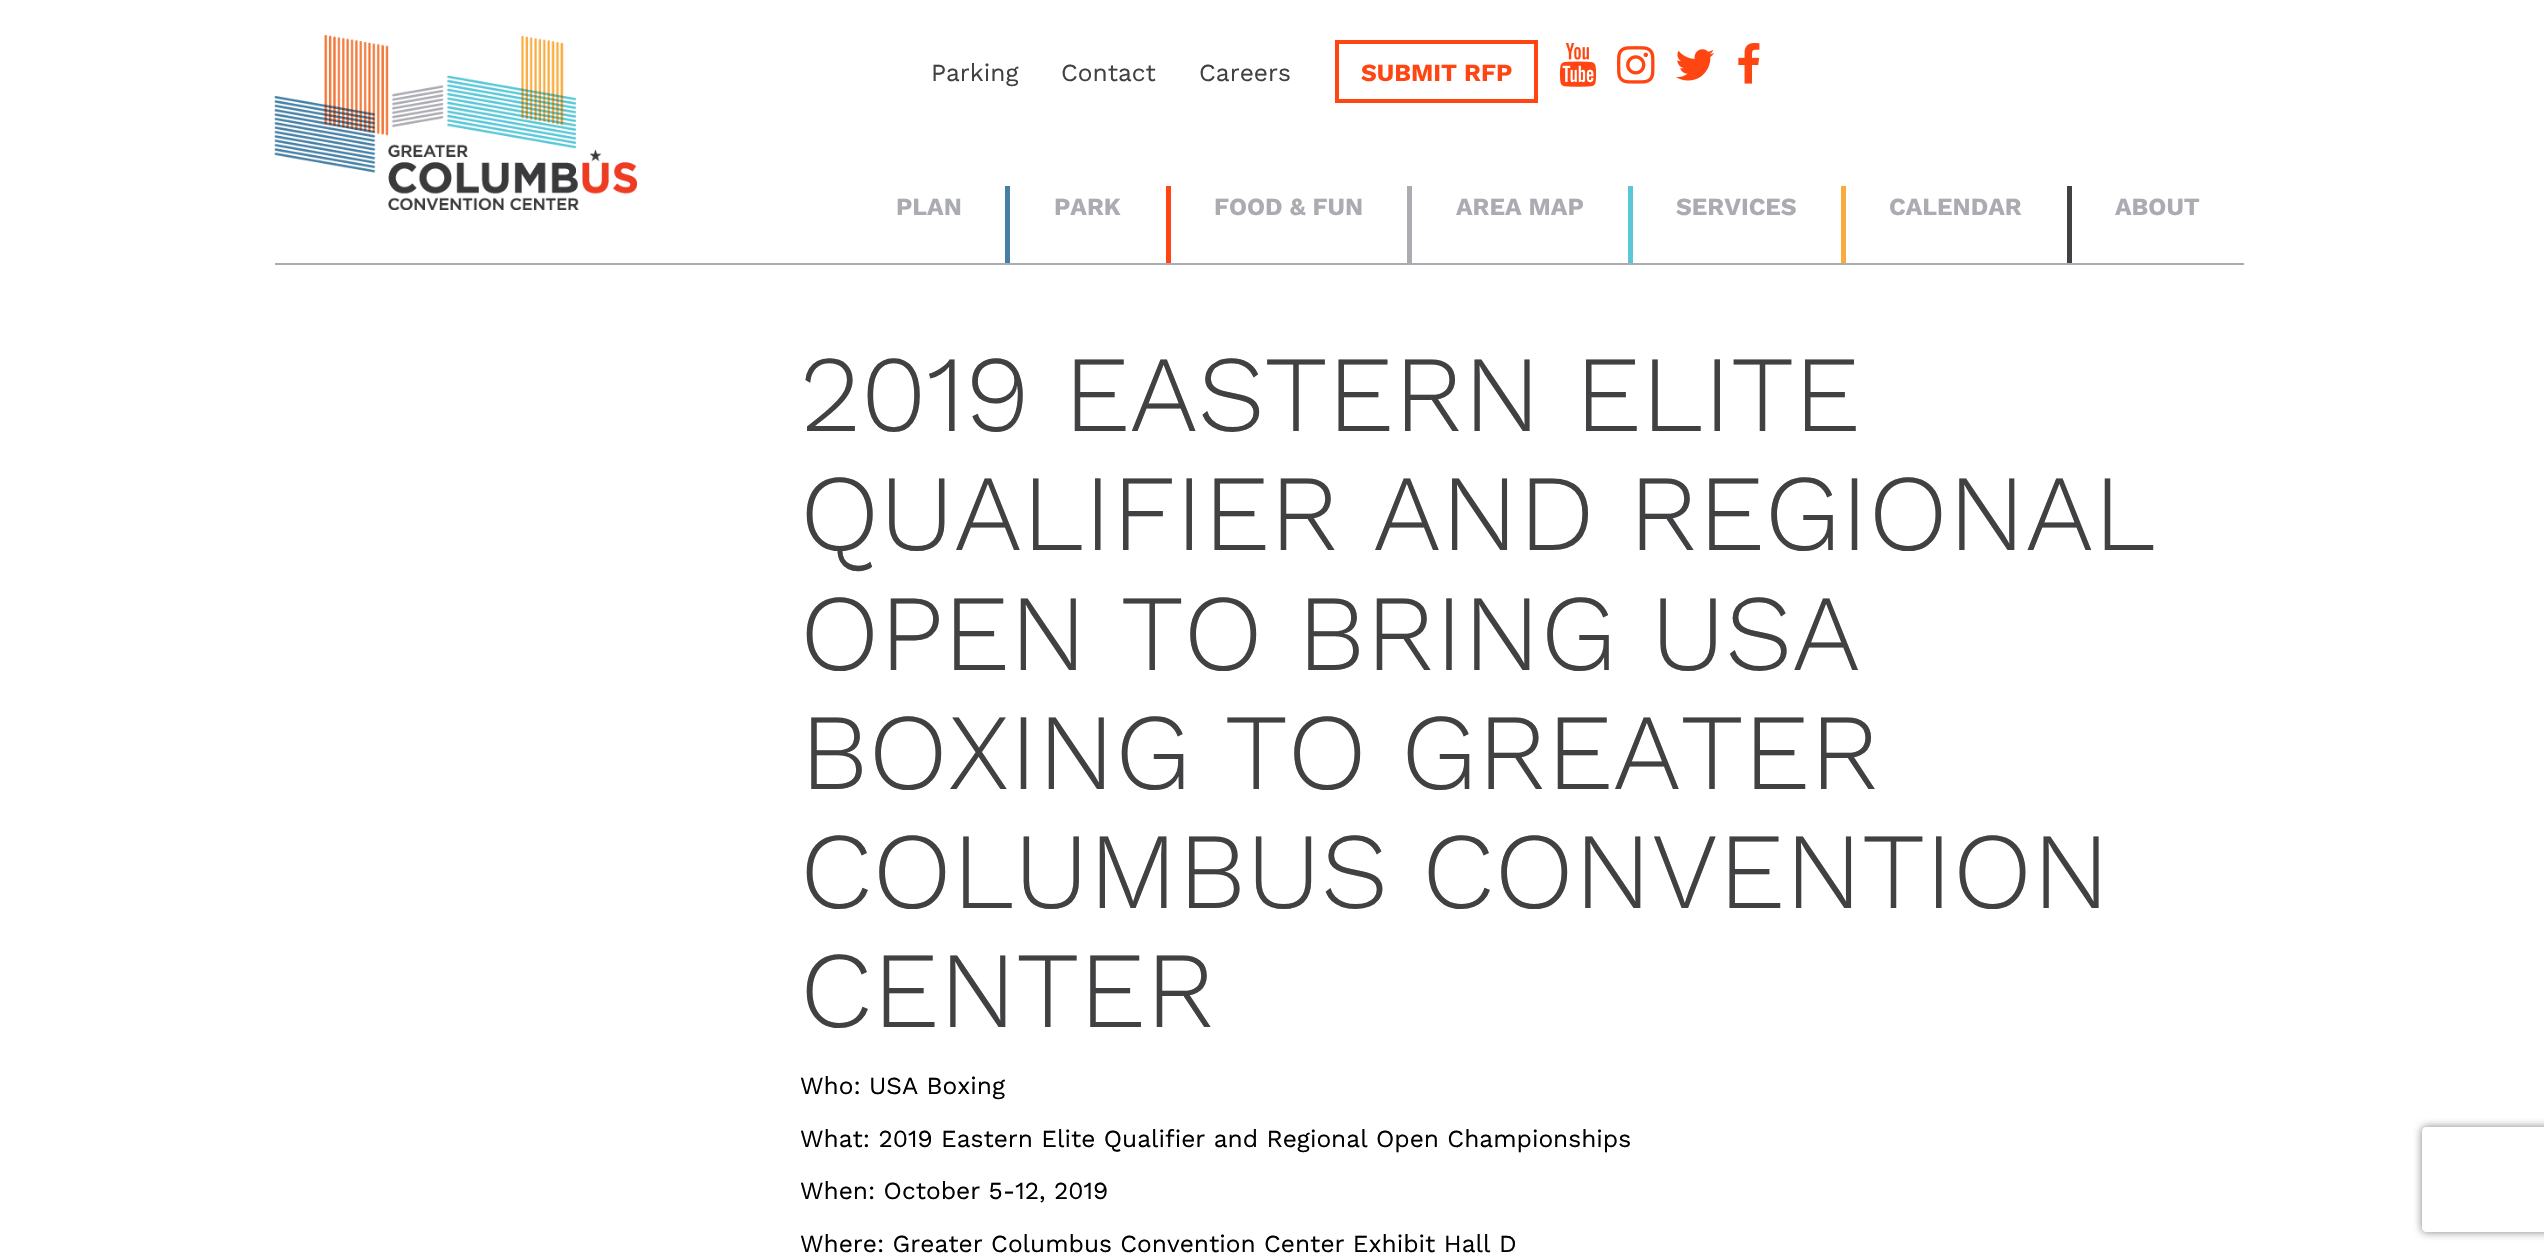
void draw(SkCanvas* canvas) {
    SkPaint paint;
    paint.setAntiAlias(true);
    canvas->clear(0xFFFFFFFF);
    canvas->drawImageRect(SkImages::DeferredFromEncodedData(SkData::MakeFromFileName("img1.png")), SkRect::MakeXYWH(274, 35, 363, 175), SkSamplingOptions());
    SkFont font1(fontMgr->matchFamilyStyle("Work Sans", SkFontStyle::Normal()), 24.5f);
    font1.setSubpixel(true);
    paint.setColor(0xFF414042);
    canvas->drawString("Parking", 931, 81, font1, paint);
    canvas->drawString("Contact", 1061, 81, font1, paint);
    canvas->drawString("Careers", 1199, 81, font1, paint);
    paint.setStyle(SkPaint::kStroke_Style);
    paint.setStrokeWidth(4);
    paint.setColor(0xFFFF4612);
    canvas->drawRect(SkRect::MakeXYWH(1337, 42, 199, 59), paint);
    SkFont font2(fontMgr->matchFamilyStyle("Work Sans", SkFontStyle::Bold()), 24.5f);
    font2.setSubpixel(true);
    paint.setStyle(SkPaint::kFill_Style);
    canvas->drawString("SUBMIT RFP", 1361, 81, font2, paint);
    canvas->drawImageRect(SkImages::DeferredFromEncodedData(SkData::MakeFromFileName("img2.png")), SkRect::MakeXYWH(1559, 43, 38, 44), SkSamplingOptions());
    canvas->drawImageRect(SkImages::DeferredFromEncodedData(SkData::MakeFromFileName("img3.png")), SkRect::MakeXYWH(1617, 46, 38, 38), SkSamplingOptions());
    canvas->drawImageRect(SkImages::DeferredFromEncodedData(SkData::MakeFromFileName("img4.png")), SkRect::MakeXYWH(1676, 49, 39, 32), SkSamplingOptions());
    canvas->drawImageRect(SkImages::DeferredFromEncodedData(SkData::MakeFromFileName("img5.png")), SkRect::MakeXYWH(1738, 43, 22, 41), SkSamplingOptions());
    paint.setColor(0xFF467FA3);
    canvas->drawRect(SkRect::MakeXYWH(1005, 186, 5, 77), paint);
    paint.setColor(0xFFAAACB2);
    canvas->drawString("PLAN", 896, 215, font2, paint);
    paint.setColor(0xFFFF4612);
    canvas->drawRect(SkRect::MakeXYWH(1166, 186, 5, 77), paint);
    paint.setColor(0xFFAAACB2);
    canvas->drawString("PARK", 1054, 215, font2, paint);
    canvas->drawRect(SkRect::MakeXYWH(1407, 186, 5, 77), paint);
    canvas->drawString("FOOD & FUN", 1214, 215, font2, paint);
    paint.setColor(0xFF5BC6D6);
    canvas->drawRect(SkRect::MakeXYWH(1628, 186, 5, 77), paint);
    paint.setColor(0xFFAAACB2);
    canvas->drawString("AREA MAP", 1456, 215, font2, paint);
    paint.setColor(0xFFFAAB3D);
    canvas->drawRect(SkRect::MakeXYWH(1841, 186, 5, 77), paint);
    paint.setColor(0xFFAAACB2);
    canvas->drawString("SERVICES", 1676, 215, font2, paint);
    paint.setColor(0xFF414042);
    canvas->drawRect(SkRect::MakeXYWH(2067, 186, 5, 77), paint);
    paint.setColor(0xFFAAACB2);
    canvas->drawString("CALENDAR", 1889, 215, font2, paint);
    canvas->drawString("ABOUT", 2115, 215, font2, paint);
    canvas->drawRect(SkRect::MakeXYWH(275, 263, 1969, 2), paint);
    SkFont font3(fontMgr->matchFamilyStyle("Work Sans", SkFontStyle(300, SkFontStyle::kNormal_Width, SkFontStyle::kUpright_Slant)), 108.5f);
    font3.setSubpixel(true);
    paint.setColor(0xFF414042);
    canvas->drawString("2019 EASTERN ELITE", 800, 431, font3, paint);
    canvas->drawString("QUALIFIER AND REGIONAL", 800, 550, font3, paint);
    canvas->drawString("OPEN TO BRING USA", 800, 670, font3, paint);
    canvas->drawString("BOXING TO GREATER", 800, 789, font3, paint);
    canvas->drawString("COLUMBUS CONVENTION", 800, 908, font3, paint);
    canvas->drawString("CENTER", 800, 1027, font3, paint);
    paint.setColor(0xFF000000);
    canvas->drawString("Who: USA Boxing", 800, 1094, font1, paint);
    canvas->drawString("What: 2019 Eastern Elite Qualifier and Regional Open Championships", 800, 1147, font1, paint);
    canvas->drawString("When: October 5-12, 2019", 800, 1199, font1, paint);
    canvas->drawString("Where: Greater Columbus Convention Center Exhibit Hall D", 800, 1252, font1, paint);
    canvas->save();
    canvas->clipPath(SkPathBuilder(SkPathFillType::kEvenOdd).moveTo(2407, 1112).lineTo(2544, 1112).lineTo(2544, 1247).lineTo(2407, 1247).close().moveTo(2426, 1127).lineTo(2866, 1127).cubicTo(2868, 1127, 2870, 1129, 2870, 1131).lineTo(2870, 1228).cubicTo(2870, 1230, 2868, 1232, 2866, 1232).lineTo(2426, 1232).cubicTo(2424, 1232, 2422, 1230, 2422, 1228).lineTo(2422, 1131).cubicTo(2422, 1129, 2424, 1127, 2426, 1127).close().detach(), true);
    paint.setColor(0xFF808080);
    paint.setMaskFilter(SkMaskFilter::MakeBlur(kNormal_SkBlurStyle, 4.5f));
    canvas->drawRoundRect(SkRect::MakeXYWH(2422, 1127, 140, 105), 4, 4, paint);
    paint.setMaskFilter(nullptr);
    canvas->restore();
}
